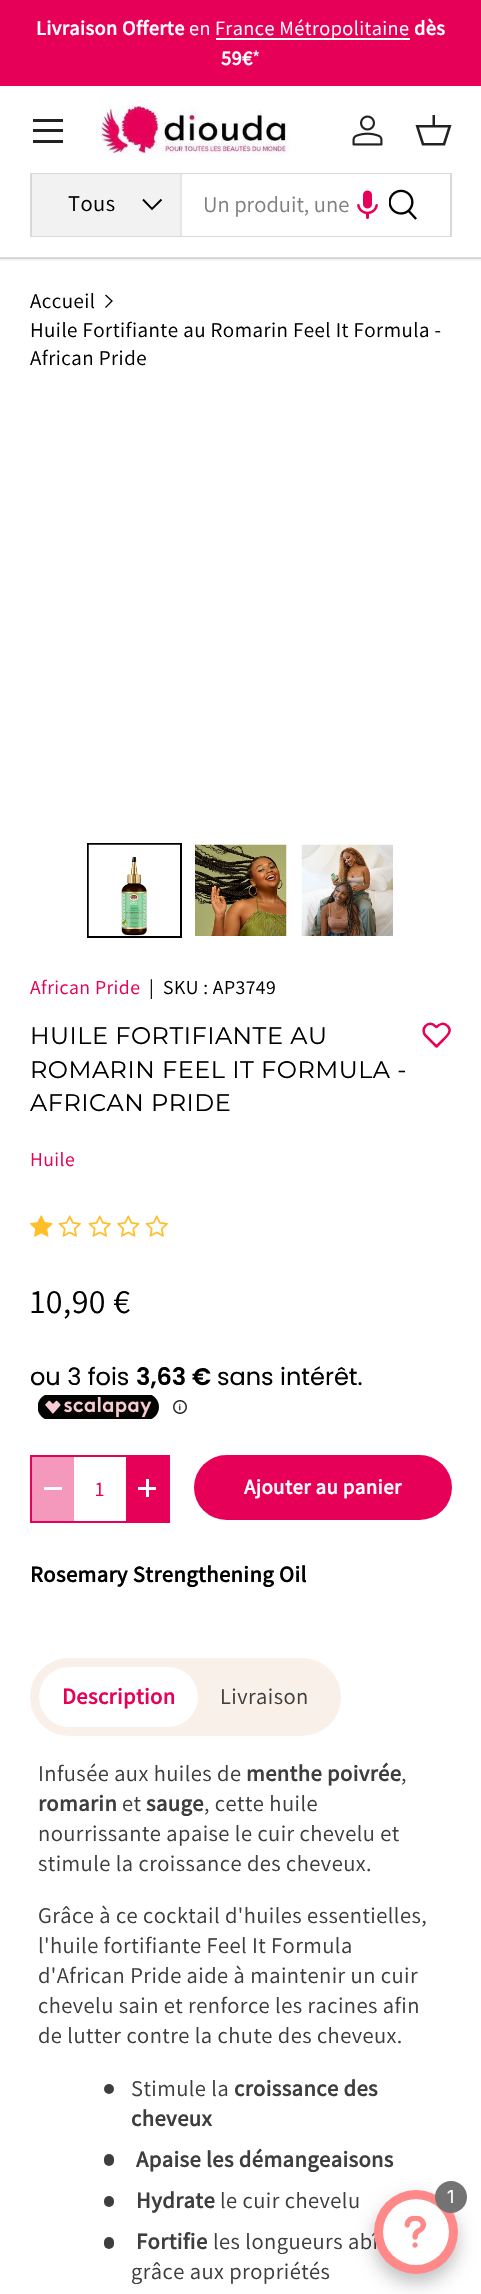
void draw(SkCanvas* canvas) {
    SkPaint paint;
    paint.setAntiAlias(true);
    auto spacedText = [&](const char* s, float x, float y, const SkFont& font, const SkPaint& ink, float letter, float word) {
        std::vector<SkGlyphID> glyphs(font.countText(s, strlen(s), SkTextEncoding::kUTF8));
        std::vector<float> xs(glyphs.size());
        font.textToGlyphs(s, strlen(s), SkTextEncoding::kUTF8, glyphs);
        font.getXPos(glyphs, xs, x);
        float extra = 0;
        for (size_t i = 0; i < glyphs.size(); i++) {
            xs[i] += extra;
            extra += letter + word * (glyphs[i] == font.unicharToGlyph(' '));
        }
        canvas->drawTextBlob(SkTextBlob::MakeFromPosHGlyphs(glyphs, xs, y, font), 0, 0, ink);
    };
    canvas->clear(0xFFFFFFFF);
    canvas->save();
    canvas->clipRect(SkRect::MakeXYWH(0, 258, 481, 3));
    paint.setColor(0x14000000);
    paint.setMaskFilter(SkMaskFilter::MakeBlur(kNormal_SkBlurStyle, 2));
    canvas->drawRect(SkRect::MakeXYWH(-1, 84, 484, 176), paint);
    paint.setMaskFilter(nullptr);
    canvas->restore();
    paint.setColor(0xFFE70057);
    canvas->drawRect(SkRect::MakeXYWH(0, 0, 481, 86), paint);
    SkFont font1(fontMgr->matchFamilyStyle("Assistant", SkFontStyle::Bold()), 20.25f);
    font1.setSubpixel(true);
    paint.setColor(0xFFFFFFFF);
    spacedText("Livraison Offerte", 36, 35, font1, paint, 0.45f, 0);
    SkFont font2(fontMgr->matchFamilyStyle("Assistant", SkFontStyle::Normal()), 20.25f);
    font2.setSubpixel(true);
    spacedText("en", 189, 35, font2, paint, 0.45f, 0);
    canvas->drawRect(SkRect::MakeXYWH(216, 38, 194, 2), paint);
    spacedText("France Métropolitaine", 215, 35, font2, paint, 0.45f, 0);
    spacedText("dès", 414, 35, font1, paint, 0.45f, 0);
    spacedText("59€", 221, 65, font1, paint, 0.45f, 0);
    spacedText("*", 252, 65, font2, paint, 0.45f, 0);
    paint.setColor(0xFF222222);
    canvas->drawRect(SkRect::MakeXYWH(33, 119, 30, 3), paint);
    canvas->drawRect(SkRect::MakeXYWH(33, 140, 30, 3), paint);
    canvas->drawRect(SkRect::MakeXYWH(33, 129, 30, 3), paint);
    canvas->drawImageRect(SkImages::DeferredFromEncodedData(SkData::MakeFromFileName("img1.png")), SkRect::MakeXYWH(96, 101, 195, 55), SkSamplingOptions());
    canvas->drawImageRect(SkImages::DeferredFromEncodedData(SkData::MakeFromFileName("img2.png")), SkRect::MakeXYWH(352, 115, 31, 31), SkSamplingOptions());
    canvas->drawPath(SkPathBuilder().moveTo(432.5f, 125).lineTo(432.5f, 115).lineTo(435, 115).lineTo(435, 125).lineTo(451.5f, 125).lineTo(445, 145.5f).lineTo(422, 145.5f).lineTo(415.5f, 125).close().moveTo(419, 127.5f).lineTo(424, 143).lineTo(443, 143).lineTo(448, 127.5f).close().detach(), paint);
    paint.setStyle(SkPaint::kStroke_Style);
    paint.setStrokeWidth(2);
    paint.setColor(0xFFD9D9D9);
    canvas->drawRect(SkRect::MakeXYWH(31, 174, 420, 62), paint);
    paint.setStyle(SkPaint::kFill_Style);
    paint.setColor(0xFFF2F2F2);
    canvas->drawRect(SkRect::MakeXYWH(32, 174, 148, 62), paint);
    paint.setColor(0xFFE6E6E6);
    canvas->drawRect(SkRect::MakeXYWH(180, 174, 2, 62), paint);
    SkFont font3(fontMgr->matchFamilyStyle("Assistant", SkFontStyle::Normal()), 22.5f);
    font3.setSubpixel(true);
    paint.setColor(0xFF000000);
    spacedText("Tous", 68, 211, font3, paint, 0.45f, 0);
    paint.setStyle(SkPaint::kStroke_Style);
    paint.setStrokeWidth(1.9f);
    canvas->drawPath(SkPathBuilder().moveTo(161.5f, 199.5f).lineTo(152, 209).lineTo(143, 199.5f).detach(), paint);
    paint.setStyle(SkPaint::kFill_Style);
    paint.setColor(0xFFFFFFFF);
    canvas->drawRect(SkRect::MakeXYWH(182, 174, 268, 62), paint);
    paint.setColor(0xFF808080);
    canvas->drawString("Un produit, une", 203, 212, font3, paint);
    canvas->drawImageRect(SkImages::DeferredFromEncodedData(SkData::MakeFromFileName("img3.png")), SkRect::MakeXYWH(357, 190, 21, 29), SkSamplingOptions());
    canvas->drawImageRect(SkImages::DeferredFromEncodedData(SkData::MakeFromFileName("img4.png")), SkRect::MakeXYWH(389, 189, 28, 31), SkSamplingOptions());
    paint.setColor(0x26222222);
    canvas->drawRect(SkRect::MakeXYWH(0, 257, 481, 2), paint);
    SkFont font4(fontMgr->matchFamilyStyle("Assistant", SkFontStyle::Normal()), 21);
    font4.setSubpixel(true);
    paint.setColor(0xFF000000);
    spacedText("Accueil", 30, 308, font4, paint, 0.45f, 0);
    paint.setStyle(SkPaint::kStroke_Style);
    paint.setStrokeWidth(1.3f);
    canvas->drawPath(SkPathBuilder().moveTo(105.5f, 295).lineTo(112, 301).lineTo(105.5f, 307.5f).detach(), paint);
    paint.setStyle(SkPaint::kFill_Style);
    spacedText("Huile Fortifiante au Romarin Feel It Formula -", 30, 337, font4, paint, 0.45f, 0);
    spacedText("African Pride", 30, 365, font4, paint, 0.45f, 0);
    paint.setStyle(SkPaint::kStroke_Style);
    paint.setStrokeWidth(2);
    canvas->drawRect(SkRect::MakeXYWH(88, 844, 93, 93), paint);
    canvas->drawImageRect(SkImages::DeferredFromEncodedData(SkData::MakeFromFileName("img5.png")), SkRect::MakeXYWH(88, 844, 92, 92), SkSamplingOptions());
    canvas->drawImageRect(SkImages::DeferredFromEncodedData(SkData::MakeFromFileName("img6.png")), SkRect::MakeXYWH(195, 844, 92, 92), SkSamplingOptions());
    canvas->drawImageRect(SkImages::DeferredFromEncodedData(SkData::MakeFromFileName("img7.png")), SkRect::MakeXYWH(301, 844, 92, 92), SkSamplingOptions());
    SkFont font5(fontMgr->matchFamilyStyle("Assistant", SkFontStyle::Normal()), 19.75f);
    font5.setSubpixel(true);
    paint.setStyle(SkPaint::kFill_Style);
    paint.setColor(0xFFE70057);
    spacedText("African Pride", 30, 994, font5, paint, 0.45f, 0);
    paint.setColor(0xFF000000);
    spacedText("|", 149, 994, font5, paint, 0.45f, 0);
    spacedText("SKU : AP3749", 163, 994, font5, paint, 0.45f, 0);
    SkFont font6(fontMgr->matchFamilyStyle("Montserrat", SkFontStyle::Normal()), 24);
    font6.setSubpixel(true);
    spacedText("HUILE FORTIFIANTE AU", 30, 1044, font6, paint, 0.5f, 0);
    spacedText("ROMARIN FEEL IT FORMULA -", 30, 1078, font6, paint, 0.5f, 0);
    spacedText("AFRICAN PRIDE", 30, 1111, font6, paint, 0.5f, 0);
    paint.setStyle(SkPaint::kStroke_Style);
    paint.setStrokeWidth(2.5f);
    paint.setStrokeCap(SkPaint::kRound_Cap);
    paint.setStrokeJoin(SkPaint::kRound_Join);
    paint.setColor(0xFFE70057);
    canvas->drawPath(SkPathBuilder().moveTo(447.5f, 1026).cubicTo(444, 1022, 439.5f, 1024, 436.5f, 1027).lineTo(435, 1026).cubicTo(432.5f, 1023, 428, 1023, 425.5f, 1026).cubicTo(423, 1028.5f, 423, 1033, 425.5f, 1035.5f).lineTo(436.5f, 1046.5f).lineTo(443, 1040).cubicTo(446.5f, 1036.5f, 453, 1031, 447.5f, 1026).close().detach(), paint);
    paint.setStyle(SkPaint::kFill_Style);
    spacedText("Huile", 30, 1166, font5, paint, 0.45f, 0);
    canvas->drawImageRect(SkImages::DeferredFromEncodedData(SkData::MakeFromFileName("img8.png")), SkRect::MakeXYWH(30, 1215, 23, 22), SkSamplingOptions());
    canvas->drawImageRect(SkImages::DeferredFromEncodedData(SkData::MakeFromFileName("img9.png")), SkRect::MakeXYWH(58, 1215, 23, 22), SkSamplingOptions());
    canvas->drawImageRect(SkImages::DeferredFromEncodedData(SkData::MakeFromFileName("img9.png")), SkRect::MakeXYWH(88, 1215, 23, 22), SkSamplingOptions());
    canvas->drawImageRect(SkImages::DeferredFromEncodedData(SkData::MakeFromFileName("img10.png")), SkRect::MakeXYWH(117, 1215, 23, 22), SkSamplingOptions());
    canvas->drawImageRect(SkImages::DeferredFromEncodedData(SkData::MakeFromFileName("img9.png")), SkRect::MakeXYWH(145, 1215, 23, 22), SkSamplingOptions());
    SkFont font7(fontMgr->matchFamilyStyle("Assistant", SkFontStyle::Normal()), 34);
    font7.setSubpixel(true);
    paint.setColor(0xFF000000);
    spacedText("10,90 €", 30, 1313, font7, paint, 0.45f, 0);
    SkFont font8(fontMgr->matchFamilyStyle("Poppins", SkFontStyle::Normal()), 24);
    font8.setSubpixel(true);
    canvas->drawString("ou 3 fois", 30, 1385, font8, paint);
    SkFont font9(fontMgr->matchFamilyStyle("Poppins", SkFontStyle(600, SkFontStyle::kNormal_Width, SkFontStyle::kUpright_Slant)), 24);
    font9.setSubpixel(true);
    canvas->drawString("3,63 €", 136, 1385, font9, paint);
    canvas->drawString("sans intérêt.", 217, 1385, font8, paint);
    canvas->drawImageRect(SkImages::DeferredFromEncodedData(SkData::MakeFromFileName("img11.png")), SkRect::MakeXYWH(38, 1395, 121, 24), SkSamplingOptions());
    canvas->drawImageRect(SkImages::DeferredFromEncodedData(SkData::MakeFromFileName("img12.png")), SkRect::MakeXYWH(173, 1400, 14, 14), SkSamplingOptions());
    paint.setStyle(SkPaint::kStroke_Style);
    paint.setStrokeWidth(2);
    paint.setStrokeCap(SkPaint::kButt_Cap);
    paint.setStrokeJoin(SkPaint::kMiter_Join);
    paint.setColor(0xFFE70057);
    canvas->drawRect(SkRect::MakeXYWH(31, 1456, 138, 66), paint);
    paint.setStyle(SkPaint::kFill_Style);
    paint.setColor(0xFFF599BC);
    canvas->drawRect(SkRect::MakeXYWH(32, 1457, 42, 64), paint);
    paint.setColor(0xFFFFFFFF);
    canvas->drawRect(SkRect::MakeXYWH(44, 1487, 18, 3), paint);
    SkFont font10(fontMgr->matchFamilyStyle("Assistant", SkFontStyle::Normal()), 20.75f);
    font10.setSubpixel(true);
    paint.setColor(0xFFE70057);
    canvas->drawString("1", 95, 1496, font10, paint);
    canvas->drawRect(SkRect::MakeXYWH(126, 1457, 42, 64), paint);
    paint.setColor(0xFFFFFFFF);
    canvas->drawRect(SkRect::MakeXYWH(138, 1487, 18, 3), paint);
    canvas->drawRect(SkRect::MakeXYWH(146, 1479, 3, 18), paint);
    {
        const SkColor colors[] = {0xFFEC3479, 0xFFE70057, 0xFFE70057};
        const float stops[] = {0.6f, 0.6f, 1};
        const SkPoint ends[] = {{-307, 1395}, {436, 1580}};
        paint.setShader(SkGradientShader::MakeLinear(ends, colors, stops, 3, SkTileMode::kClamp));
        paint.setAlpha(255);
    }
    canvas->drawRoundRect(SkRect::MakeXYWH(194, 1455, 258, 65), 32.5f, 32.5f, paint);
    SkFont font11(fontMgr->matchFamilyStyle("Assistant", SkFontStyle::Bold()), 20.75f);
    font11.setSubpixel(true);
    paint.setShader(nullptr);
    paint.setColor(0xFFFFFFFF);
    spacedText("Ajouter au panier", 244, 1494, font11, paint, 0.45f, 0);
    SkFont font12(fontMgr->matchFamilyStyle("Assistant", SkFontStyle::Bold()), 22.5f);
    font12.setSubpixel(true);
    paint.setColor(0xFF000000);
    spacedText("Rosemary Strengthening Oil", 30, 1582, font12, paint, 0.45f, 0);
    paint.setColor(0xFFFAF0EA);
    canvas->drawRoundRect(SkRect::MakeXYWH(30, 1658, 311, 78), 39, 39, paint);
    paint.setColor(0xFFFFFFFF);
    canvas->drawRoundRect(SkRect::MakeXYWH(39, 1667, 159, 60), 30, 30, paint);
    paint.setColor(0xFFE70057);
    spacedText("Description", 62, 1704, font12, paint, 0.45f, 0);
    paint.setColor(0xFF3E3E3E);
    spacedText("Livraison", 220, 1704, font3, paint, 0.45f, 0);
    spacedText("Infusée aux huiles de", 38, 1781, font3, paint, 0.45f, 0);
    spacedText("menthe poivrée", 246, 1781, font12, paint, 0.45f, 0);
    spacedText(",", 401, 1781, font3, paint, 0.45f, 0);
    spacedText("romarin", 38, 1811, font12, paint, 0.45f, 0);
    spacedText("et", 122, 1811, font3, paint, 0.45f, 0);
    spacedText("sauge", 146, 1811, font12, paint, 0.45f, 0);
    spacedText(", cette huile", 204, 1811, font3, paint, 0.45f, 0);
    spacedText("nourrissante apaise le cuir chevelu et", 38, 1841, font3, paint, 0.45f, 0);
    spacedText("stimule la croissance des cheveux.", 38, 1871, font3, paint, 0.45f, 0);
    spacedText("Grâce à ce cocktail d'huiles essentielles,", 38, 1923, font3, paint, 0.45f, 0);
    spacedText("l'huile fortifiante Feel It Formula", 38, 1953, font3, paint, 0.45f, 0);
    spacedText("d'African Pride aide à maintenir un cuir", 38, 1983, font3, paint, 0.45f, 0);
    spacedText("chevelu sain et renforce les racines afin", 38, 2013, font3, paint, 0.45f, 0);
    spacedText("de lutter contre la chute des cheveux.", 38, 2043, font3, paint, 0.45f, 0);
    canvas->drawCircle(109, 2089, 5, paint);
    spacedText("Stimule la", 131, 2096, font3, paint, 0.45f, 0);
    spacedText("croissance des", 234, 2096, font12, paint, 0.45f, 0);
    spacedText("cheveux", 131, 2126, font12, paint, 0.45f, 0);
    canvas->drawRoundRect(SkRect::MakeXYWH(104, 2154, 10, 12), 5, 5, paint);
    spacedText("Apaise les démangeaisons", 136, 2167, font12, paint, 0.45f, 0);
    canvas->drawRoundRect(SkRect::MakeXYWH(104, 2196, 10, 11), 5, 5, paint);
    spacedText("Hydrate", 136, 2208, font12, paint, 0.45f, 0);
    spacedText("le cuir chevelu", 220, 2208, font3, paint, 0.45f, 0);
    canvas->drawRoundRect(SkRect::MakeXYWH(104, 2237, 10, 12), 5, 5, paint);
    spacedText("Fortifie", 136, 2249, font12, paint, 0.45f, 0);
    spacedText("les longueurs abî", 213, 2249, font3, paint, 0.45f, 0);
    spacedText("grâce aux propriétés", 131, 2279, font3, paint, 0.45f, 0);
    paint.setColor(0x40000000);
    paint.setMaskFilter(SkMaskFilter::MakeBlur(kNormal_SkBlurStyle, 9));
    canvas->drawRoundRect(SkRect::MakeXYWH(374, 2199, 84, 84), 42, 42, paint);
    paint.setMaskFilter(nullptr);
    paint.setColor(0xFFFF8988);
    canvas->drawCircle(416, 2232, 42, paint);
    paint.setColor(0xFFFFFFFF);
    canvas->drawCircle(416, 2232, 33, paint);
    canvas->drawImageRect(SkImages::DeferredFromEncodedData(SkData::MakeFromFileName("img13.png")), SkRect::MakeXYWH(404, 2216, 23, 32), SkSamplingOptions());
    paint.setColor(0xFF737373);
    canvas->drawCircle(451, 2197, 16, paint);
    SkFont font13(fontMgr->matchFamilyStyle("Inter", SkFontStyle::Normal()), 18);
    font13.setSubpixel(true);
    paint.setColor(0xFFFFFFFF);
    spacedText("1", 447, 2203, font13, paint, 0.45f, 0);
}
